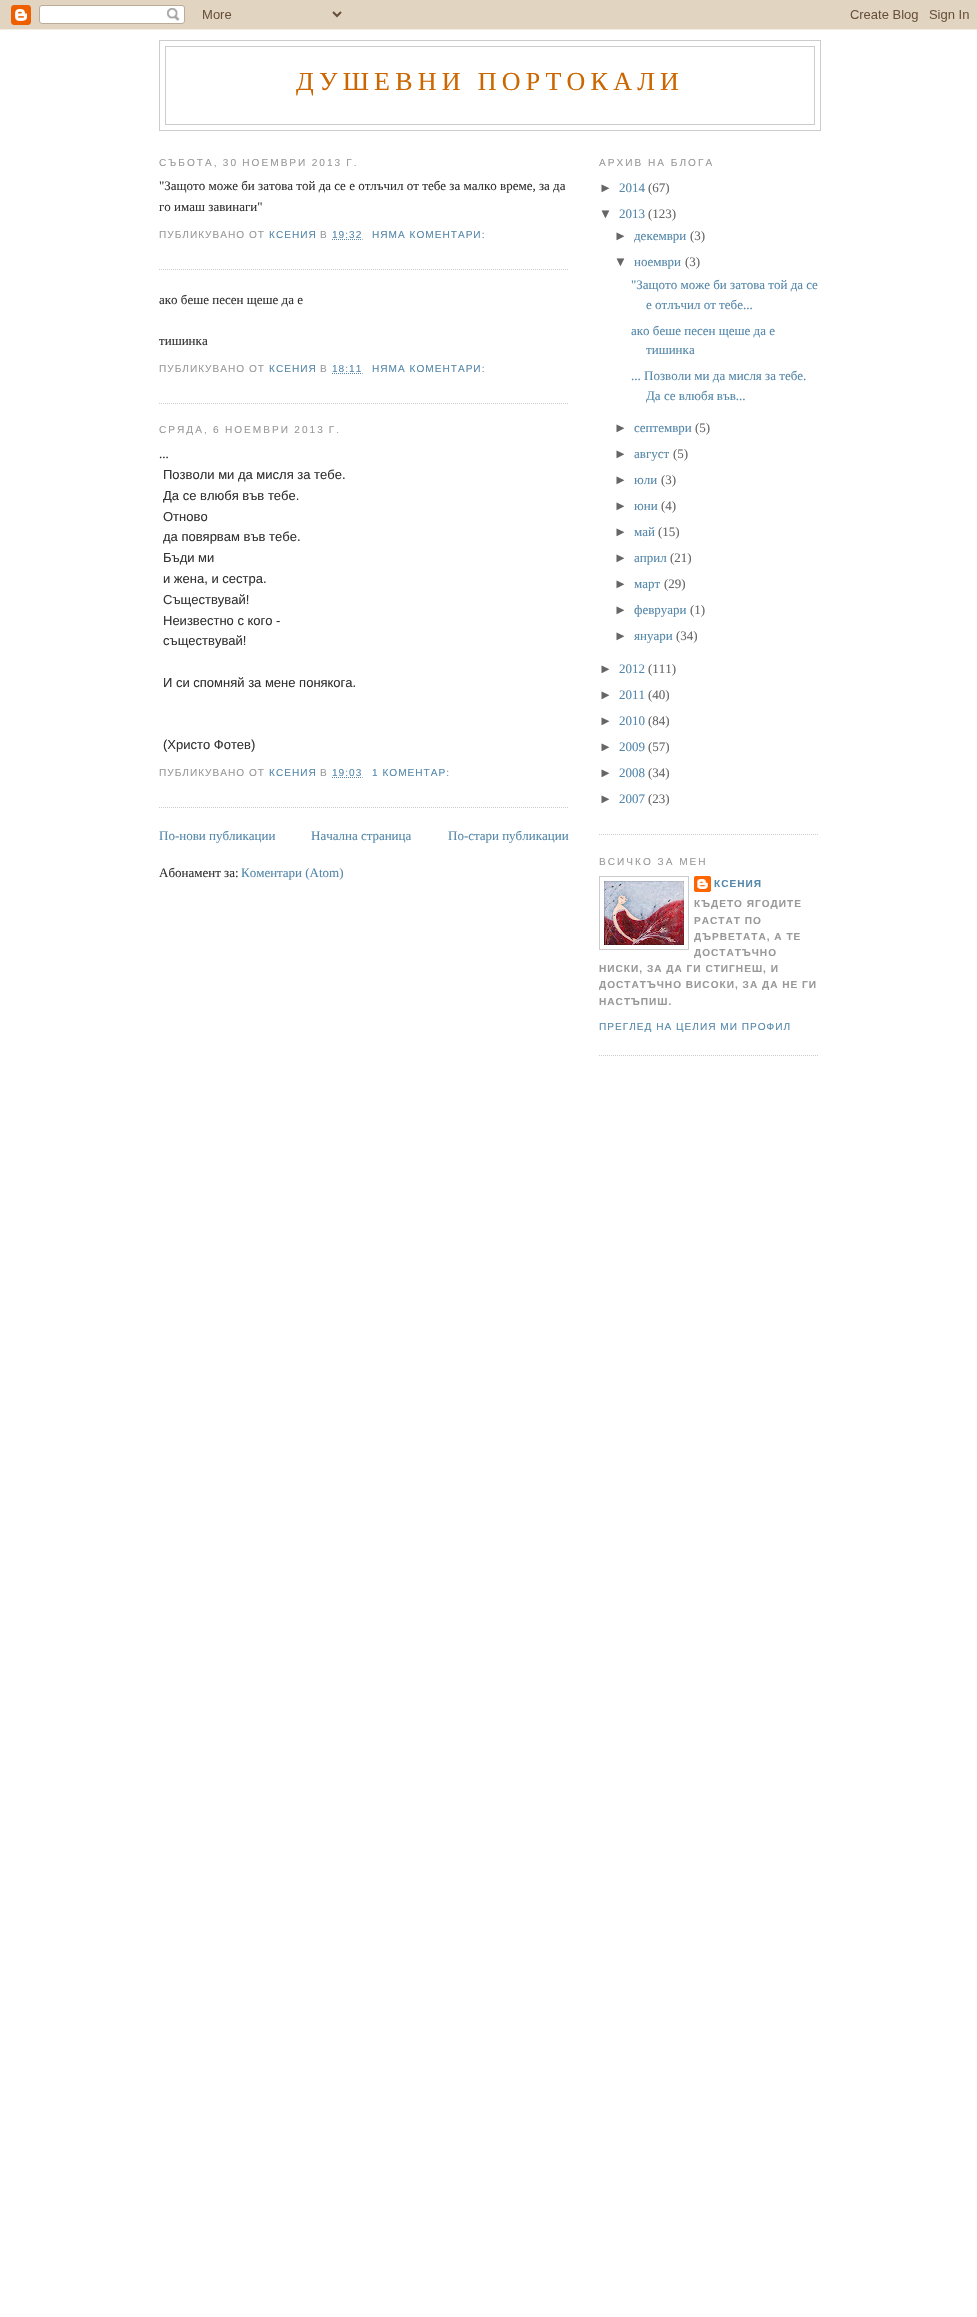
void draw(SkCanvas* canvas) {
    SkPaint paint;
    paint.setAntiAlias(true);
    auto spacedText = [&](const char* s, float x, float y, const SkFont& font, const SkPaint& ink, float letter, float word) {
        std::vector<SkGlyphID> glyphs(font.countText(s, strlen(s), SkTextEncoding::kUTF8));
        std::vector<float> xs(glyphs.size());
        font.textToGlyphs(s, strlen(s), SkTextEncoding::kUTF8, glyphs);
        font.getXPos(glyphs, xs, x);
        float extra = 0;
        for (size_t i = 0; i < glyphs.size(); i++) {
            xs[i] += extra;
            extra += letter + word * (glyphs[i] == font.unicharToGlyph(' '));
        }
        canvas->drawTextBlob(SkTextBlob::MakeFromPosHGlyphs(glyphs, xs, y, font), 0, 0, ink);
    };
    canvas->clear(0xFFFFFFFF);
    canvas->drawImageRect(SkImages::DeferredFromEncodedData(SkData::MakeFromFileName("img1.png")), SkRect::MakeXYWH(0, 0, 977, 30), SkSamplingOptions());
    paint.setStyle(SkPaint::kStroke_Style);
    paint.setStrokeWidth(1);
    paint.setColor(0xFFCCCCCC);
    canvas->drawRect(SkRect::MakeXYWH(159.5f, 40.5f, 661, 90), paint);
    canvas->drawRect(SkRect::MakeXYWH(165.5f, 46.5f, 649, 78), paint);
    SkFont font1(fontMgr->matchFamilyStyle("Liberation Serif", SkFontStyle::Normal()), 26);
    font1.setSubpixel(true);
    paint.setStyle(SkPaint::kFill_Style);
    paint.setColor(0xFFCC6600);
    spacedText("ДУШЕВНИ ПОРТОКАЛИ", 296, 90, font1, paint, 5.25f, 0);
    SkFont font2(fontMgr->matchFamilyStyle("Liberation Sans", SkFontStyle::Normal()), 10.1f);
    font2.setSubpixel(true);
    paint.setColor(0xFF999999);
    spacedText("СЪБОТА, 30 НОЕМВРИ 2013 Г.", 159, 166, font2, paint, 2, -0.5f);
    paint.setStyle(SkPaint::kStroke_Style);
    paint.setColor(0xFFCCCCCC);
    paint.setPathEffect(SkDashPathEffect::Make({{1, 1}}, 0));
    canvas->drawPath(SkPathBuilder().moveTo(159, 269.5f).lineTo(569, 269.5f).detach(), paint);
    paint.setPathEffect(nullptr);
    SkFont font3(fontMgr->matchFamilyStyle("Liberation Serif", SkFontStyle::Normal()), 13);
    font3.setSubpixel(true);
    paint.setStyle(SkPaint::kFill_Style);
    paint.setColor(0xFF333333);
    canvas->drawString("\"Защото може би затова той да се е отлъчил от тебе за малко време, за да", 159, 190, font3, paint);
    canvas->drawString("го имаш завинаги\"", 159, 211, font3, paint);
    paint.setColor(0xFF999999);
    spacedText("ПУБЛИКУВАНО ОТ", 159, 238, font2, paint, 1, 0);
    paint.setColor(0xFF5588AA);
    spacedText("КСЕНИЯ", 269, 238, font2, paint, 1, 0);
    paint.setColor(0xFF999999);
    spacedText("В", 320, 238, font2, paint, 1, 0);
    paint.setColor(0xFF5588AA);
    spacedText("19:32", 332, 238, font2, paint, 1, 0);
    paint.setStyle(SkPaint::kStroke_Style);
    paint.setPathEffect(SkDashPathEffect::Make({{1, 1}}, 0));
    canvas->drawPath(SkPathBuilder().moveTo(332, 239.5f).lineTo(362.5f, 239.5f).detach(), paint);
    paint.setPathEffect(nullptr);
    paint.setStyle(SkPaint::kFill_Style);
    spacedText("НЯМА КОМЕНТАРИ:", 372, 238, font2, paint, 1, 0);
    paint.setStyle(SkPaint::kStroke_Style);
    paint.setColor(0xFFCCCCCC);
    paint.setPathEffect(SkDashPathEffect::Make({{1, 1}}, 0));
    canvas->drawPath(SkPathBuilder().moveTo(159, 403.5f).lineTo(569, 403.5f).detach(), paint);
    paint.setPathEffect(nullptr);
    paint.setStyle(SkPaint::kFill_Style);
    paint.setColor(0xFF333333);
    canvas->drawString("ако беше песен щеше да е", 159, 304, font3, paint);
    canvas->drawString("тишинка", 159, 345, font3, paint);
    paint.setColor(0xFF999999);
    spacedText("ПУБЛИКУВАНО ОТ", 159, 372, font2, paint, 1, 0);
    paint.setColor(0xFF5588AA);
    spacedText("КСЕНИЯ", 269, 372, font2, paint, 1, 0);
    paint.setColor(0xFF999999);
    spacedText("В", 320, 372, font2, paint, 1, 0);
    paint.setColor(0xFF5588AA);
    spacedText("18:11", 332, 372, font2, paint, 1, 0);
    paint.setStyle(SkPaint::kStroke_Style);
    paint.setPathEffect(SkDashPathEffect::Make({{1, 1}}, 0));
    canvas->drawPath(SkPathBuilder().moveTo(332, 373.5f).lineTo(362.5f, 373.5f).detach(), paint);
    paint.setPathEffect(nullptr);
    paint.setStyle(SkPaint::kFill_Style);
    spacedText("НЯМА КОМЕНТАРИ:", 372, 372, font2, paint, 1, 0);
    paint.setColor(0xFF999999);
    spacedText("СРЯДА, 6 НОЕМВРИ 2013 Г.", 159, 433, font2, paint, 2, -0.5f);
    paint.setStyle(SkPaint::kStroke_Style);
    paint.setColor(0xFFCCCCCC);
    paint.setPathEffect(SkDashPathEffect::Make({{1, 1}}, 0));
    canvas->drawPath(SkPathBuilder().moveTo(159, 807.5f).lineTo(569, 807.5f).detach(), paint);
    paint.setPathEffect(nullptr);
    paint.setStyle(SkPaint::kFill_Style);
    paint.setColor(0xFF333333);
    canvas->drawString("...", 159, 458, font3, paint);
    SkFont font4(fontMgr->matchFamilyStyle("Liberation Sans", SkFontStyle::Normal()), 13);
    font4.setSubpixel(true);
    canvas->drawString("Позволи ми да мисля за тебе.", 163, 479, font4, paint);
    canvas->drawString("Да се влюбя във тебе.", 163, 500, font4, paint);
    canvas->drawString("Отново", 163, 521, font4, paint);
    canvas->drawString("да повярвам във тебе.", 163, 541, font4, paint);
    canvas->drawString("Бъди ми", 163, 562, font4, paint);
    canvas->drawString("и жена, и сестра.", 163, 583, font4, paint);
    canvas->drawString("Съществувай!", 163, 604, font4, paint);
    canvas->drawString("Неизвестно с кого -", 163, 625, font4, paint);
    canvas->drawString("съществувай!", 163, 645, font4, paint);
    canvas->drawString("И си спомняй за мене понякога.", 163, 687, font4, paint);
    canvas->drawString("(Христо Фотев)", 163, 749, font4, paint);
    paint.setColor(0xFF999999);
    spacedText("ПУБЛИКУВАНО ОТ", 159, 776, font2, paint, 1, 0);
    paint.setColor(0xFF5588AA);
    spacedText("КСЕНИЯ", 269, 776, font2, paint, 1, 0);
    paint.setColor(0xFF999999);
    spacedText("В", 320, 776, font2, paint, 1, 0);
    paint.setColor(0xFF5588AA);
    spacedText("19:03", 332, 776, font2, paint, 1, 0);
    paint.setStyle(SkPaint::kStroke_Style);
    paint.setPathEffect(SkDashPathEffect::Make({{1, 1}}, 0));
    canvas->drawPath(SkPathBuilder().moveTo(332, 777.5f).lineTo(362.5f, 777.5f).detach(), paint);
    paint.setPathEffect(nullptr);
    paint.setStyle(SkPaint::kFill_Style);
    spacedText("1 КОМЕНТАР:", 372, 776, font2, paint, 1, 0);
    canvas->drawString("По-нови публикации", 159, 840, font3, paint);
    canvas->drawString("Начална страница", 311, 840, font3, paint);
    canvas->drawString("По-стари публикации", 448, 840, font3, paint);
    paint.setColor(0xFF333333);
    canvas->drawString("Абонамент за:", 159, 877, font3, paint);
    paint.setColor(0xFF5588AA);
    canvas->drawString("Коментари (Atom)", 241, 877, font3, paint);
    paint.setStyle(SkPaint::kStroke_Style);
    paint.setColor(0xFFCCCCCC);
    paint.setPathEffect(SkDashPathEffect::Make({{1, 1}}, 0));
    canvas->drawPath(SkPathBuilder().moveTo(599, 834.5f).lineTo(819, 834.5f).detach(), paint);
    paint.setPathEffect(nullptr);
    paint.setStyle(SkPaint::kFill_Style);
    paint.setColor(0xFF999999);
    spacedText("АРХИВ НА БЛОГА", 599, 166, font2, paint, 2, 0);
    paint.setColor(0xFF666666);
    canvas->drawString("►", 599, 192, font4, paint);
    paint.setColor(0xFF5588AA);
    canvas->drawString("2014", 619, 192, font3, paint);
    paint.setColor(0xFF666666);
    canvas->drawString("(67)", 648, 192, font3, paint);
    canvas->drawString("▼", 599, 218, font4, paint);
    paint.setColor(0xFF5588AA);
    canvas->drawString("2013", 619, 218, font3, paint);
    paint.setColor(0xFF666666);
    canvas->drawString("(123)", 648, 218, font3, paint);
    canvas->drawString("►", 614, 240, font4, paint);
    paint.setColor(0xFF5588AA);
    canvas->drawString("декември", 634, 240, font3, paint);
    paint.setColor(0xFF666666);
    canvas->drawString("(3)", 690, 240, font3, paint);
    canvas->drawString("▼", 614, 266, font4, paint);
    paint.setColor(0xFF5588AA);
    canvas->drawString("ноември", 634, 266, font3, paint);
    paint.setColor(0xFF666666);
    canvas->drawString("(3)", 685, 266, font3, paint);
    paint.setColor(0xFF5588AA);
    canvas->drawString("\"Защото може би затова той да се", 631, 289, font3, paint);
    canvas->drawString("е отлъчил от тебе...", 646, 309, font3, paint);
    canvas->drawString("ако беше песен щеше да е", 631, 335, font3, paint);
    canvas->drawString("тишинка", 646, 354, font3, paint);
    canvas->drawString("... Позволи ми да мисля за тебе.", 631, 380, font3, paint);
    canvas->drawString("Да се влюбя във...", 646, 400, font3, paint);
    paint.setColor(0xFF666666);
    canvas->drawString("►", 614, 432, font4, paint);
    paint.setColor(0xFF5588AA);
    canvas->drawString("септември", 634, 432, font3, paint);
    paint.setColor(0xFF666666);
    canvas->drawString("(5)", 695, 432, font3, paint);
    canvas->drawString("►", 614, 458, font4, paint);
    paint.setColor(0xFF5588AA);
    canvas->drawString("август", 634, 458, font3, paint);
    paint.setColor(0xFF666666);
    canvas->drawString("(5)", 673, 458, font3, paint);
    canvas->drawString("►", 614, 484, font4, paint);
    paint.setColor(0xFF5588AA);
    canvas->drawString("юли", 634, 484, font3, paint);
    paint.setColor(0xFF666666);
    canvas->drawString("(3)", 661, 484, font3, paint);
    canvas->drawString("►", 614, 510, font4, paint);
    paint.setColor(0xFF5588AA);
    canvas->drawString("юни", 634, 510, font3, paint);
    paint.setColor(0xFF666666);
    canvas->drawString("(4)", 661, 510, font3, paint);
    canvas->drawString("►", 614, 536, font4, paint);
    paint.setColor(0xFF5588AA);
    canvas->drawString("май", 634, 536, font3, paint);
    paint.setColor(0xFF666666);
    canvas->drawString("(15)", 658, 536, font3, paint);
    canvas->drawString("►", 614, 562, font4, paint);
    paint.setColor(0xFF5588AA);
    canvas->drawString("април", 634, 562, font3, paint);
    paint.setColor(0xFF666666);
    canvas->drawString("(21)", 670, 562, font3, paint);
    canvas->drawString("►", 614, 588, font4, paint);
    paint.setColor(0xFF5588AA);
    canvas->drawString("март", 634, 588, font3, paint);
    paint.setColor(0xFF666666);
    canvas->drawString("(29)", 664, 588, font3, paint);
    canvas->drawString("►", 614, 614, font4, paint);
    paint.setColor(0xFF5588AA);
    canvas->drawString("февруари", 634, 614, font3, paint);
    paint.setColor(0xFF666666);
    canvas->drawString("(1)", 690, 614, font3, paint);
    canvas->drawString("►", 614, 640, font4, paint);
    paint.setColor(0xFF5588AA);
    canvas->drawString("януари", 634, 640, font3, paint);
    paint.setColor(0xFF666666);
    canvas->drawString("(34)", 676, 640, font3, paint);
    canvas->drawString("►", 599, 673, font4, paint);
    paint.setColor(0xFF5588AA);
    canvas->drawString("2012", 619, 673, font3, paint);
    paint.setColor(0xFF666666);
    canvas->drawString("(111)", 648, 673, font3, paint);
    canvas->drawString("►", 599, 699, font4, paint);
    paint.setColor(0xFF5588AA);
    canvas->drawString("2011", 619, 699, font3, paint);
    paint.setColor(0xFF666666);
    canvas->drawString("(40)", 648, 699, font3, paint);
    canvas->drawString("►", 599, 725, font4, paint);
    paint.setColor(0xFF5588AA);
    canvas->drawString("2010", 619, 725, font3, paint);
    paint.setColor(0xFF666666);
    canvas->drawString("(84)", 648, 725, font3, paint);
    canvas->drawString("►", 599, 751, font4, paint);
    paint.setColor(0xFF5588AA);
    canvas->drawString("2009", 619, 751, font3, paint);
    paint.setColor(0xFF666666);
    canvas->drawString("(57)", 648, 751, font3, paint);
    canvas->drawString("►", 599, 777, font4, paint);
    paint.setColor(0xFF5588AA);
    canvas->drawString("2008", 619, 777, font3, paint);
    paint.setColor(0xFF666666);
    canvas->drawString("(34)", 648, 777, font3, paint);
    canvas->drawString("►", 599, 803, font4, paint);
    paint.setColor(0xFF5588AA);
    canvas->drawString("2007", 619, 803, font3, paint);
    paint.setColor(0xFF666666);
    canvas->drawString("(23)", 648, 803, font3, paint);
    paint.setStyle(SkPaint::kStroke_Style);
    paint.setColor(0xFFCCCCCC);
    paint.setPathEffect(SkDashPathEffect::Make({{1, 1}}, 0));
    canvas->drawPath(SkPathBuilder().moveTo(599, 1055.5f).lineTo(819, 1055.5f).detach(), paint);
    paint.setPathEffect(nullptr);
    paint.setStyle(SkPaint::kFill_Style);
    paint.setColor(0xFF999999);
    spacedText("ВСИЧКО ЗА МЕН", 599, 865, font2, paint, 2, 0);
    paint.setStyle(SkPaint::kStroke_Style);
    paint.setColor(0xFFCCCCCC);
    canvas->drawRect(SkRect::MakeXYWH(599.5f, 876.5f, 89, 73), paint);
    canvas->drawImageRect(SkImages::DeferredFromEncodedData(SkData::MakeFromFileName("img2.png")), SkRect::MakeXYWH(604, 881, 80, 64), SkSamplingOptions());
    canvas->drawImageRect(SkImages::DeferredFromEncodedData(SkData::MakeFromFileName("img3.png")), SkRect::MakeXYWH(694, 876, 17, 16), SkSamplingOptions());
    SkFont font5(fontMgr->matchFamilyStyle("Liberation Sans", SkFontStyle::Bold()), 10.1f);
    font5.setSubpixel(true);
    paint.setStyle(SkPaint::kFill_Style);
    paint.setColor(0xFF5588AA);
    spacedText("КСЕНИЯ", 714, 887, font5, paint, 1, 0);
    paint.setColor(0xFF999999);
    spacedText("КЪДЕТО ЯГОДИТЕ", 694, 907, font5, paint, 1, 0);
    spacedText("РАСТАТ ПО", 694, 924, font5, paint, 1, 0);
    spacedText("ДЪРВЕТАТА, А ТЕ", 694, 940, font5, paint, 1, 0);
    spacedText("ДОСТАТЪЧНО", 694, 956, font5, paint, 1, 0);
    spacedText("НИСКИ, ЗА ДА ГИ СТИГНЕШ, И", 599, 972, font5, paint, 1, 0);
    canvas->save();
    canvas->clipRect(SkRect::MakeXYWH(599, 141, 220, 935));
    spacedText("ДОСТАТЪЧНО ВИСОКИ, ЗА ДА НЕ ГИ", 599, 988, font5, paint, 1, 0);
    canvas->restore();
    spacedText("НАСТЪПИШ.", 599, 1005, font5, paint, 1, 0);
    paint.setColor(0xFF5588AA);
    spacedText("ПРЕГЛЕД НА ЦЕЛИЯ МИ ПРОФИЛ", 599, 1030, font2, paint, 1, 0);
}
